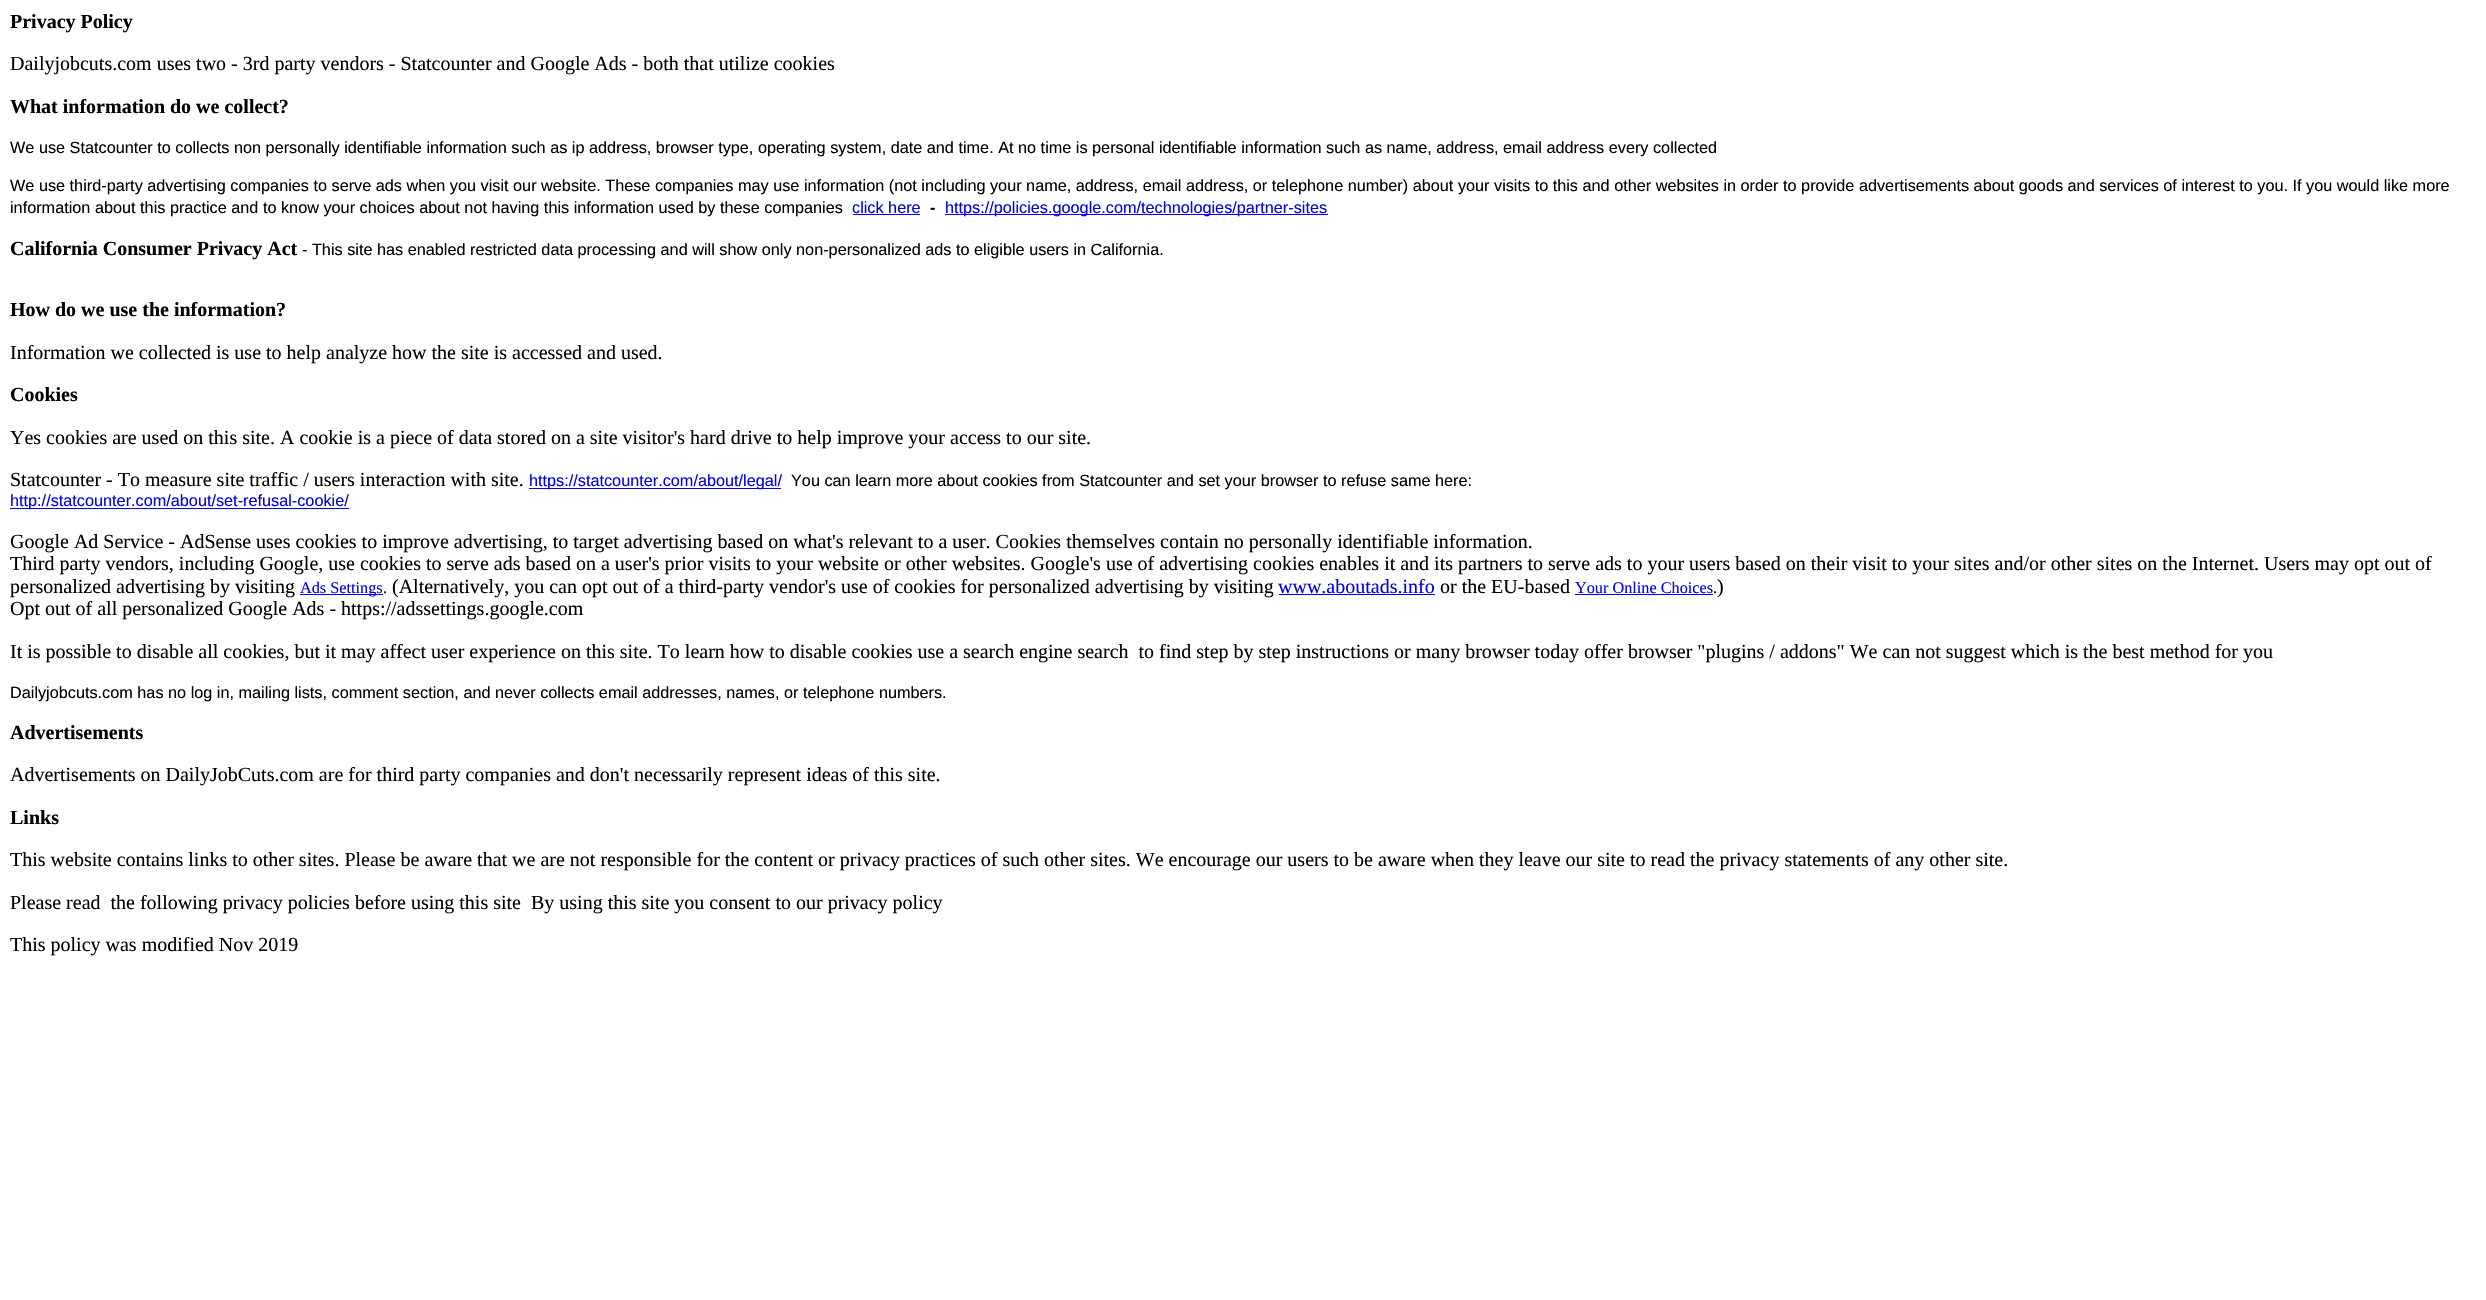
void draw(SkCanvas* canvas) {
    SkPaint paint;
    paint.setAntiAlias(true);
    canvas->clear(0xFFFFFFFF);
    SkFont font1(fontMgr->matchFamilyStyle("Liberation Serif", SkFontStyle::Bold()), 20);
    font1.setSubpixel(true);
    paint.setColor(0xFF000000);
    canvas->drawString("Privacy Policy", 10, 28, font1, paint);
    SkFont font2(fontMgr->matchFamilyStyle("Liberation Serif", SkFontStyle::Normal()), 20);
    font2.setSubpixel(true);
    canvas->drawString("Dailyjobcuts.com uses two - 3rd party vendors - Statcounter and Google Ads - both that utilize cookies", 10, 70, font2, paint);
    canvas->drawString("What information do we collect?", 10, 113, font1, paint);
    SkFont font3(fontMgr->matchFamilyStyle("Liberation Sans", SkFontStyle::Normal()), 16.25f);
    font3.setSubpixel(true);
    canvas->drawString("We use Statcounter to collects non personally identifiable information such as ip address, browser type, operating system, date and time. At no time is personal identifiable information such as name, address, email address every collected", 10, 153, font3, paint);
    canvas->drawString("We use third-party advertising companies to serve ads when you visit our website. These companies may use information (not including your name, address, email address, or telephone number) about your visits to this and other websites in order to provide advertisements about goods and services of interest to you. If you would like more", 10, 191, font3, paint);
    canvas->drawString("information about this practice and to know your choices about not having this information used by these companies", 10, 213, font3, paint);
    paint.setColor(0xFF0000EE);
    canvas->drawString("click here", 852, 213, font3, paint);
    canvas->drawRect(SkRect::MakeXYWH(853, 214, 67, 1), paint);
    SkFont font4(fontMgr->matchFamilyStyle("Liberation Sans", SkFontStyle::Bold()), 16.25f);
    font4.setSubpixel(true);
    paint.setColor(0xFF000000);
    canvas->drawString("-", 930, 213, font4, paint);
    paint.setColor(0xFF0000EE);
    canvas->drawRect(SkRect::MakeXYWH(945, 214, 383, 1), paint);
    canvas->drawString("https://policies.google.com/technologies/partner-sites", 945, 213, font3, paint);
    paint.setColor(0xFF000000);
    canvas->drawString("California Consumer Privacy Act", 10, 255, font1, paint);
    canvas->drawString("- This site has enabled restricted data processing and will show only non-personalized ads to eligible users in California.", 302, 255, font3, paint);
    canvas->drawString("How do we use the information?", 10, 316, font1, paint);
    canvas->drawString("Information we collected is use to help analyze how the site is accessed and used.", 10, 359, font2, paint);
    canvas->drawString("Cookies", 10, 401, font1, paint);
    canvas->drawString("Yes cookies are used on this site. A cookie is a piece of data stored on a site visitor's hard drive to help improve your access to our site.", 10, 444, font2, paint);
    canvas->drawString("Statcounter - To measure site traffic / users interaction with site.", 10, 486, font2, paint);
    paint.setColor(0xFF0000EE);
    canvas->drawRect(SkRect::MakeXYWH(529, 488, 252, 1), paint);
    canvas->drawString("https://statcounter.com/about/legal/", 529, 486, font3, paint);
    paint.setColor(0xFF000000);
    canvas->drawString("You can learn more about cookies from Statcounter and set your browser to refuse same here:", 791, 486, font3, paint);
    paint.setColor(0xFF0000EE);
    canvas->drawRect(SkRect::MakeXYWH(10, 508, 339, 1), paint);
    canvas->drawString("http://statcounter.com/about/set-refusal-cookie/", 10, 506, font3, paint);
    paint.setColor(0xFF000000);
    canvas->drawString("Google Ad Service - AdSense uses cookies to improve advertising, to target advertising based on what's relevant to a user. Cookies themselves contain no personally identifiable information.", 10, 548, font2, paint);
    canvas->drawString("Third party vendors, including Google, use cookies to serve ads based on a user's prior visits to your website or other websites. Google's use of advertising cookies enables it and its partners to serve ads to your users based on their visit to your sites and/or other sites on the Internet. Users may opt out of", 10, 570, font2, paint);
    canvas->drawString("personalized advertising by visiting", 10, 593, font2, paint);
    paint.setColor(0xFF0000EE);
    canvas->drawRect(SkRect::MakeXYWH(300, 594, 83, 1), paint);
    SkFont font5(fontMgr->matchFamilyStyle("Liberation Serif", SkFontStyle::Normal()), 16.25f);
    font5.setSubpixel(true);
    canvas->drawString("Ads Settings", 300, 593, font5, paint);
    paint.setColor(0xFF000000);
    canvas->drawString(".", 383, 593, font5, paint);
    canvas->drawString("(Alternatively, you can opt out of a third-party vendor's use of cookies for personalized advertising by visiting", 392, 593, font2, paint);
    paint.setColor(0xFF0000EE);
    canvas->drawString("www.aboutads.info", 1278, 593, font2, paint);
    canvas->drawRect(SkRect::MakeXYWH(1279, 594, 156, 1), paint);
    paint.setColor(0xFF000000);
    canvas->drawString("or the EU-based", 1440, 593, font2, paint);
    paint.setColor(0xFF0000EE);
    canvas->drawString("Your Online Choices", 1575, 593, font5, paint);
    paint.setColor(0xFF000000);
    canvas->drawString(".", 1713, 593, font5, paint);
    paint.setColor(0xFF0000EE);
    canvas->drawRect(SkRect::MakeXYWH(1575, 594, 138, 1), paint);
    paint.setColor(0xFF000000);
    canvas->drawString(")", 1717, 593, font2, paint);
    canvas->drawString("Opt out of all personalized Google Ads - https://adssettings.google.com", 10, 615, font2, paint);
    canvas->drawString("It is possible to disable all cookies, but it may affect user experience on this site. To learn how to disable cookies use a search engine search  to find step by step instructions or many browser today offer browser \"plugins / addons\" We can not suggest which is the best method for you", 10, 658, font2, paint);
    canvas->drawString("Dailyjobcuts.com has no log in, mailing lists, comment section, and never collects email addresses, names, or telephone numbers.", 10, 698, font3, paint);
    canvas->drawString("Advertisements", 10, 739, font1, paint);
    canvas->drawString("Advertisements on DailyJobCuts.com are for third party companies and don't necessarily represent ideas of this site.", 10, 781, font2, paint);
    canvas->drawString("Links", 10, 824, font1, paint);
    canvas->drawString("This website contains links to other sites. Please be aware that we are not responsible for the content or privacy practices of such other sites. We encourage our users to be aware when they leave our site to read the privacy statements of any other site.", 10, 866, font2, paint);
    canvas->drawString("Please read  the following privacy policies before using this site  By using this site you consent to our privacy policy", 10, 909, font2, paint);
    canvas->drawString("This policy was modified Nov 2019", 10, 951, font2, paint);
}
